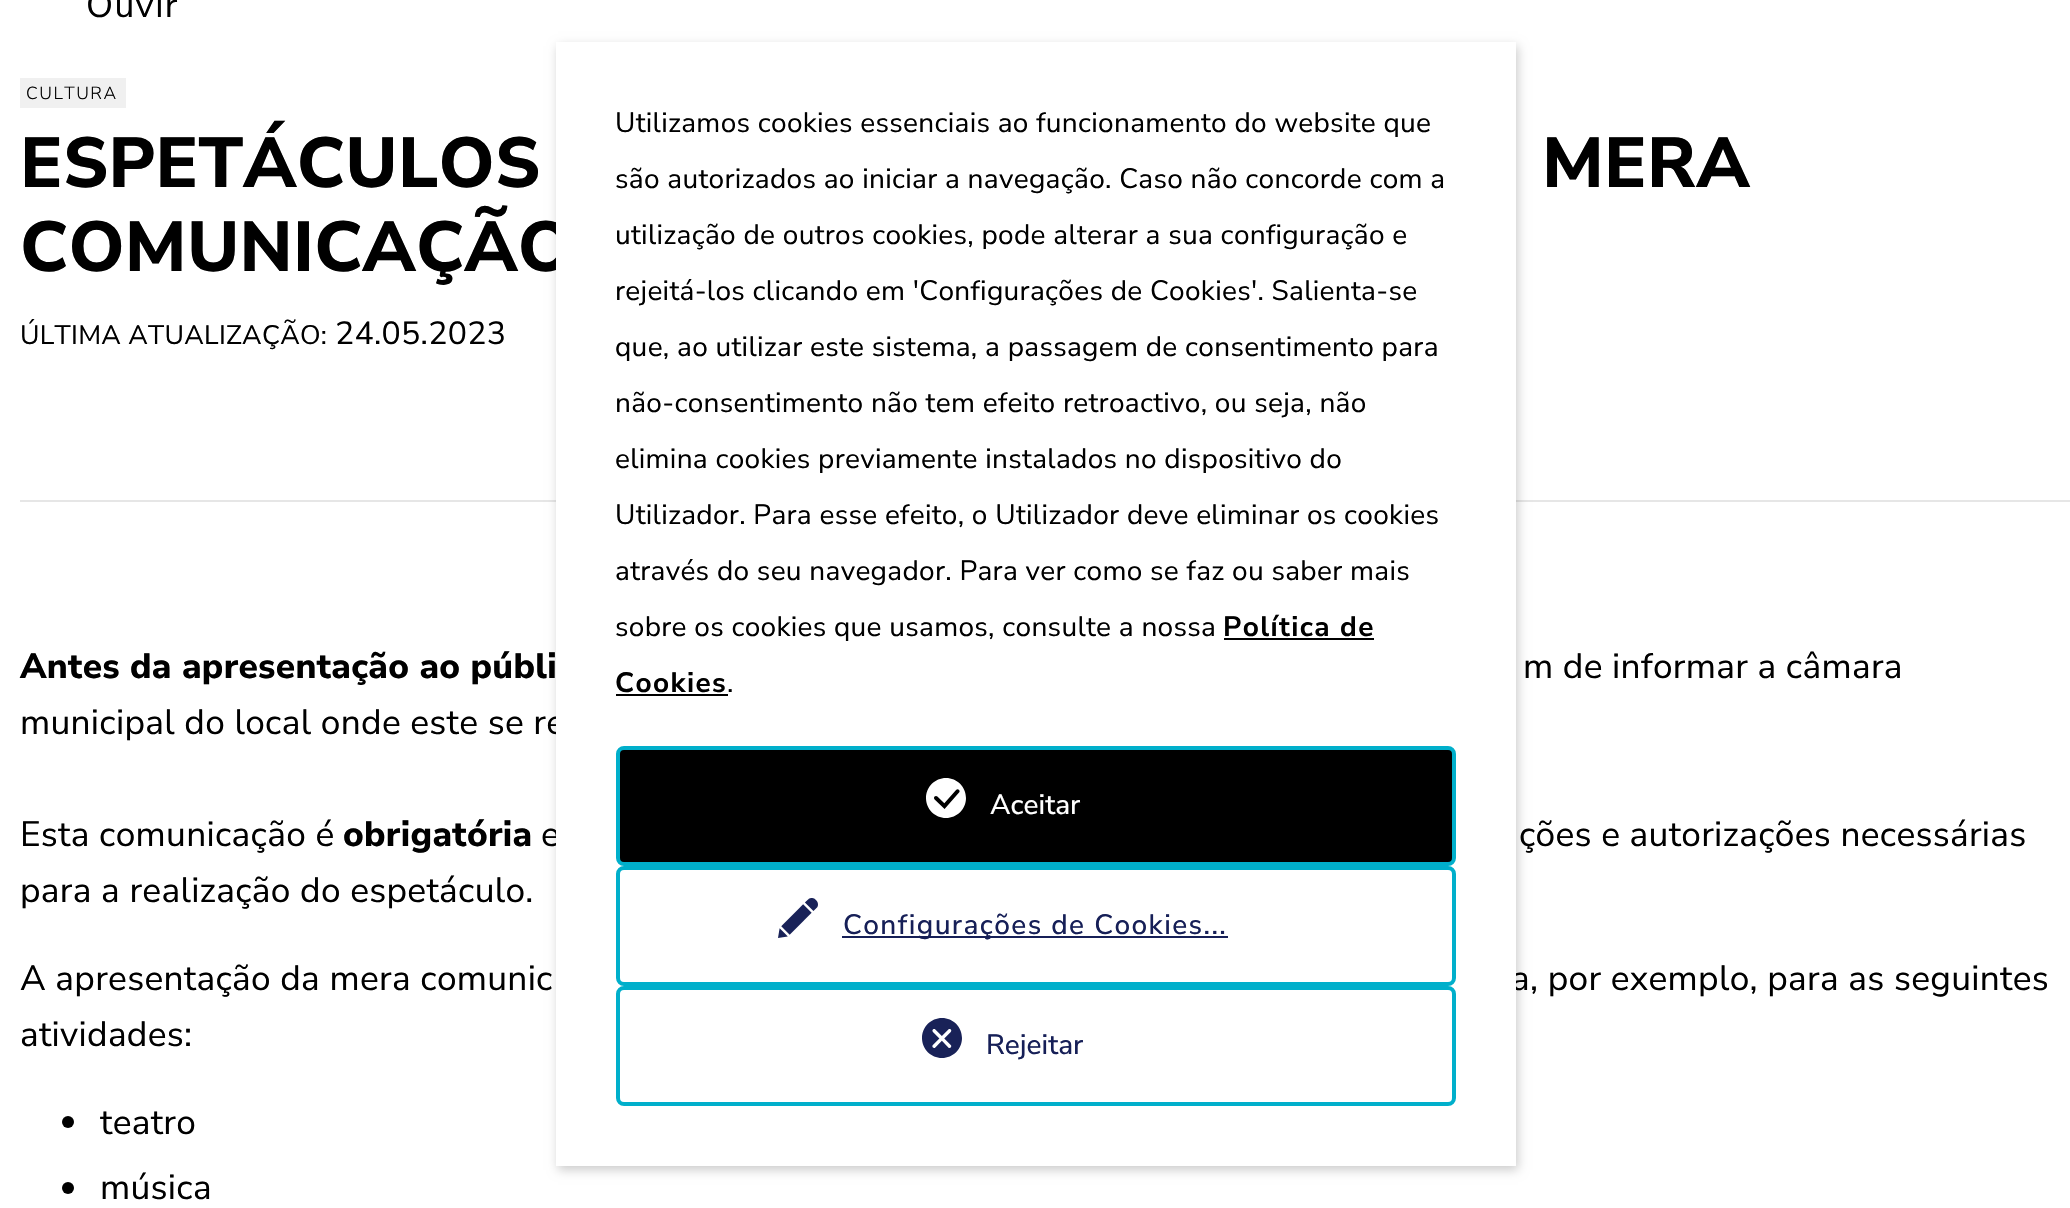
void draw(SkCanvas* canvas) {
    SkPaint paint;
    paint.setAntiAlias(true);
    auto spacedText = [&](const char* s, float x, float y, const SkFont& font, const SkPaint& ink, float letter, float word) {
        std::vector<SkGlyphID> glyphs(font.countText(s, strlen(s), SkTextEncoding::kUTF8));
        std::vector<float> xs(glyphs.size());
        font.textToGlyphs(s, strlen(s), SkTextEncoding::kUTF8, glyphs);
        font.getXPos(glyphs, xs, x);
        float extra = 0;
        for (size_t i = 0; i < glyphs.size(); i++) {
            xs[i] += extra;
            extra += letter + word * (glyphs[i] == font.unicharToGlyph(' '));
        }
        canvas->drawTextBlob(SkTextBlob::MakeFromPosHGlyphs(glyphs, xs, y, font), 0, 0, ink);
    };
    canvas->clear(0xFFFFFFFF);
    SkFont font1(fontMgr->matchFamilyStyle("Nunito Sans", SkFontStyle::Normal()), 35.25f);
    font1.setSubpixel(true);
    paint.setColor(0xFF000000);
    spacedText("Ouvir", 86, 17, font1, paint, 1.4f, 0);
    paint.setColor(0xFFF0F0F0);
    canvas->drawRect(SkRect::MakeXYWH(20, 78, 106, 30), paint);
    SkFont font2(fontMgr->matchFamilyStyle("Nunito Sans", SkFontStyle(300, SkFontStyle::kNormal_Width, SkFontStyle::kUpright_Slant)), 17.5f);
    font2.setSubpixel(true);
    paint.setColor(0xFF000000);
    spacedText("CULTURA", 26, 99, font2, paint, 1.5f, 0);
    SkFont font3(fontMgr->matchFamilyStyle("Nunito Sans", SkFontStyle(800, SkFontStyle::kNormal_Width, SkFontStyle::kUpright_Slant)), 70.5f);
    font3.setSubpixel(true);
    spacedText("ESPETÁCULOS", 20, 187, font3, paint, 0.3f, 0);
    spacedText("MERA", 1542, 187, font3, paint, 0.3f, 0);
    spacedText("COMUNICAÇÃO", 20, 271, font3, paint, 0.3f, 0);
    SkFont font4(fontMgr->matchFamilyStyle("Nunito Sans", SkFontStyle::Normal()), 26.75f);
    font4.setSubpixel(true);
    spacedText("ÚLTIMA ATUALIZAÇÃO:", 20, 344, font4, paint, 0.3f, 0);
    SkFont font5(fontMgr->matchFamilyStyle("Nunito Sans", SkFontStyle::Normal()), 32);
    font5.setSubpixel(true);
    spacedText("24.05.2023", 335, 344, font5, paint, 0.3f, 0);
    paint.setColor(0xFFE6E6E6);
    canvas->drawRect(SkRect::MakeXYWH(20, 500, 2050, 2), paint);
    SkFont font6(fontMgr->matchFamilyStyle("Nunito Sans", SkFontStyle(800, SkFontStyle::kNormal_Width, SkFontStyle::kUpright_Slant)), 35.25f);
    font6.setSubpixel(true);
    paint.setColor(0xFF000000);
    spacedText("Antes da apresentação ao públi", 20, 678, font6, paint, 0.3f, 0);
    spacedText("m de informar a câmara", 1523, 678, font1, paint, 0.3f, 0);
    spacedText("municipal do local onde este se re", 20, 734, font1, paint, 0.3f, 0);
    spacedText("Esta comunicação é", 20, 846, font1, paint, 0.3f, 0);
    spacedText("obrigatória", 343, 846, font6, paint, 0.3f, 0);
    spacedText("e", 541, 846, font1, paint, 0.3f, 0);
    spacedText("ções e autorizações necessárias", 1519, 846, font1, paint, 0.3f, 0);
    spacedText("para a realização do espetáculo.", 20, 902, font1, paint, 0.3f, 0);
    spacedText("A apresentação da mera comunic", 20, 990, font1, paint, 0.3f, 0);
    spacedText("a, por exemplo, para as seguintes", 1511, 990, font1, paint, 0.3f, 0);
    spacedText("atividades:", 20, 1046, font1, paint, 0.3f, 0);
    canvas->drawCircle(68, 1122, 6, paint);
    spacedText("teatro", 100, 1134, font1, paint, 0.3f, 0);
    canvas->drawCircle(68, 1188, 6, paint);
    spacedText("música", 100, 1199, font1, paint, 0.3f, 0);
    paint.setColor(0x33000000);
    paint.setMaskFilter(SkMaskFilter::MakeBlur(kNormal_SkBlurStyle, 5));
    canvas->drawRect(SkRect::MakeXYWH(558, 46, 960, 1124), paint);
    paint.setMaskFilter(nullptr);
    paint.setColor(0xFFFFFFFF);
    canvas->drawRect(SkRect::MakeXYWH(556, 42, 960, 1124), paint);
    SkFont font7(fontMgr->matchFamilyStyle("Nunito Sans", SkFontStyle::Normal()), 28);
    font7.setSubpixel(true);
    paint.setColor(0xFF000000);
    spacedText("Utilizamos cookies essenciais ao funcionamento do website que", 615, 132, font7, paint, 0.3f, 0);
    spacedText("são autorizados ao iniciar a navegação. Caso não concorde com a", 615, 188, font7, paint, 0.3f, 0);
    spacedText("utilização de outros cookies, pode alterar a sua configuração e", 615, 244, font7, paint, 0.3f, 0);
    spacedText("rejeitá-los clicando em 'Configurações de Cookies'. Salienta-se", 615, 300, font7, paint, 0.3f, 0);
    spacedText("que, ao utilizar este sistema, a passagem de consentimento para", 615, 356, font7, paint, 0.3f, 0);
    spacedText("não-consentimento não tem efeito retroactivo, ou seja, não", 615, 412, font7, paint, 0.3f, 0);
    spacedText("elimina cookies previamente instalados no dispositivo do", 615, 468, font7, paint, 0.3f, 0);
    spacedText("Utilizador. Para esse efeito, o Utilizador deve eliminar os cookies", 615, 524, font7, paint, 0.3f, 0);
    spacedText("através do seu navegador. Para ver como se faz ou saber mais", 615, 580, font7, paint, 0.3f, 0);
    spacedText("sobre os cookies que usamos, consulte a nossa", 615, 636, font7, paint, 0.3f, 0);
    SkFont font8(fontMgr->matchFamilyStyle("Nunito Sans", SkFontStyle::Bold()), 28);
    font8.setSubpixel(true);
    spacedText("Política de", 1223, 636, font8, paint, 1.4f, 0);
    canvas->drawRect(SkRect::MakeXYWH(1224, 638, 150, 2), paint);
    spacedText("Cookies", 615, 692, font8, paint, 1.4f, 0);
    spacedText(".", 727, 692, font7, paint, 0.3f, 0);
    canvas->drawRect(SkRect::MakeXYWH(616, 694, 112, 2), paint);
    canvas->drawRoundRect(SkRect::MakeXYWH(618, 748, 836, 116), 6, 6, paint);
    paint.setStyle(SkPaint::kStroke_Style);
    paint.setStrokeWidth(4);
    paint.setColor(0xFF00AFCB);
    canvas->drawRoundRect(SkRect::MakeXYWH(618, 748, 836, 116), 6, 6, paint);
    canvas->drawImageRect(SkImages::DeferredFromEncodedData(SkData::MakeFromFileName("img1.png")), SkRect::MakeXYWH(926, 778, 40, 40), SkSamplingOptions());
    SkFont font9(fontMgr->matchFamilyStyle("Nunito Sans", SkFontStyle(500, SkFontStyle::kNormal_Width, SkFontStyle::kUpright_Slant)), 28);
    font9.setSubpixel(true);
    paint.setStyle(SkPaint::kFill_Style);
    paint.setColor(0xFFFFFFFF);
    canvas->drawString("Aceitar", 990, 814, font9, paint);
    paint.setStyle(SkPaint::kStroke_Style);
    paint.setColor(0xFF00AFCB);
    canvas->drawRoundRect(SkRect::MakeXYWH(618, 988, 836, 116), 6, 6, paint);
    canvas->drawImageRect(SkImages::DeferredFromEncodedData(SkData::MakeFromFileName("img2.png")), SkRect::MakeXYWH(922, 1018, 40, 40), SkSamplingOptions());
    paint.setStyle(SkPaint::kFill_Style);
    paint.setColor(0xFF161F57);
    canvas->drawString("Rejeitar", 986, 1054, font9, paint);
    paint.setStyle(SkPaint::kStroke_Style);
    paint.setColor(0xFF00AFCB);
    canvas->drawRoundRect(SkRect::MakeXYWH(618, 868, 836, 116), 6, 6, paint);
    canvas->drawImageRect(SkImages::DeferredFromEncodedData(SkData::MakeFromFileName("img3.png")), SkRect::MakeXYWH(778, 898, 40, 40), SkSamplingOptions());
    paint.setStyle(SkPaint::kFill_Style);
    paint.setColor(0xFF161F57);
    canvas->drawRect(SkRect::MakeXYWH(842, 936, 386, 2), paint);
    spacedText("Configurações de Cookies...", 843, 934, font9, paint, 1.4f, 0);
}
